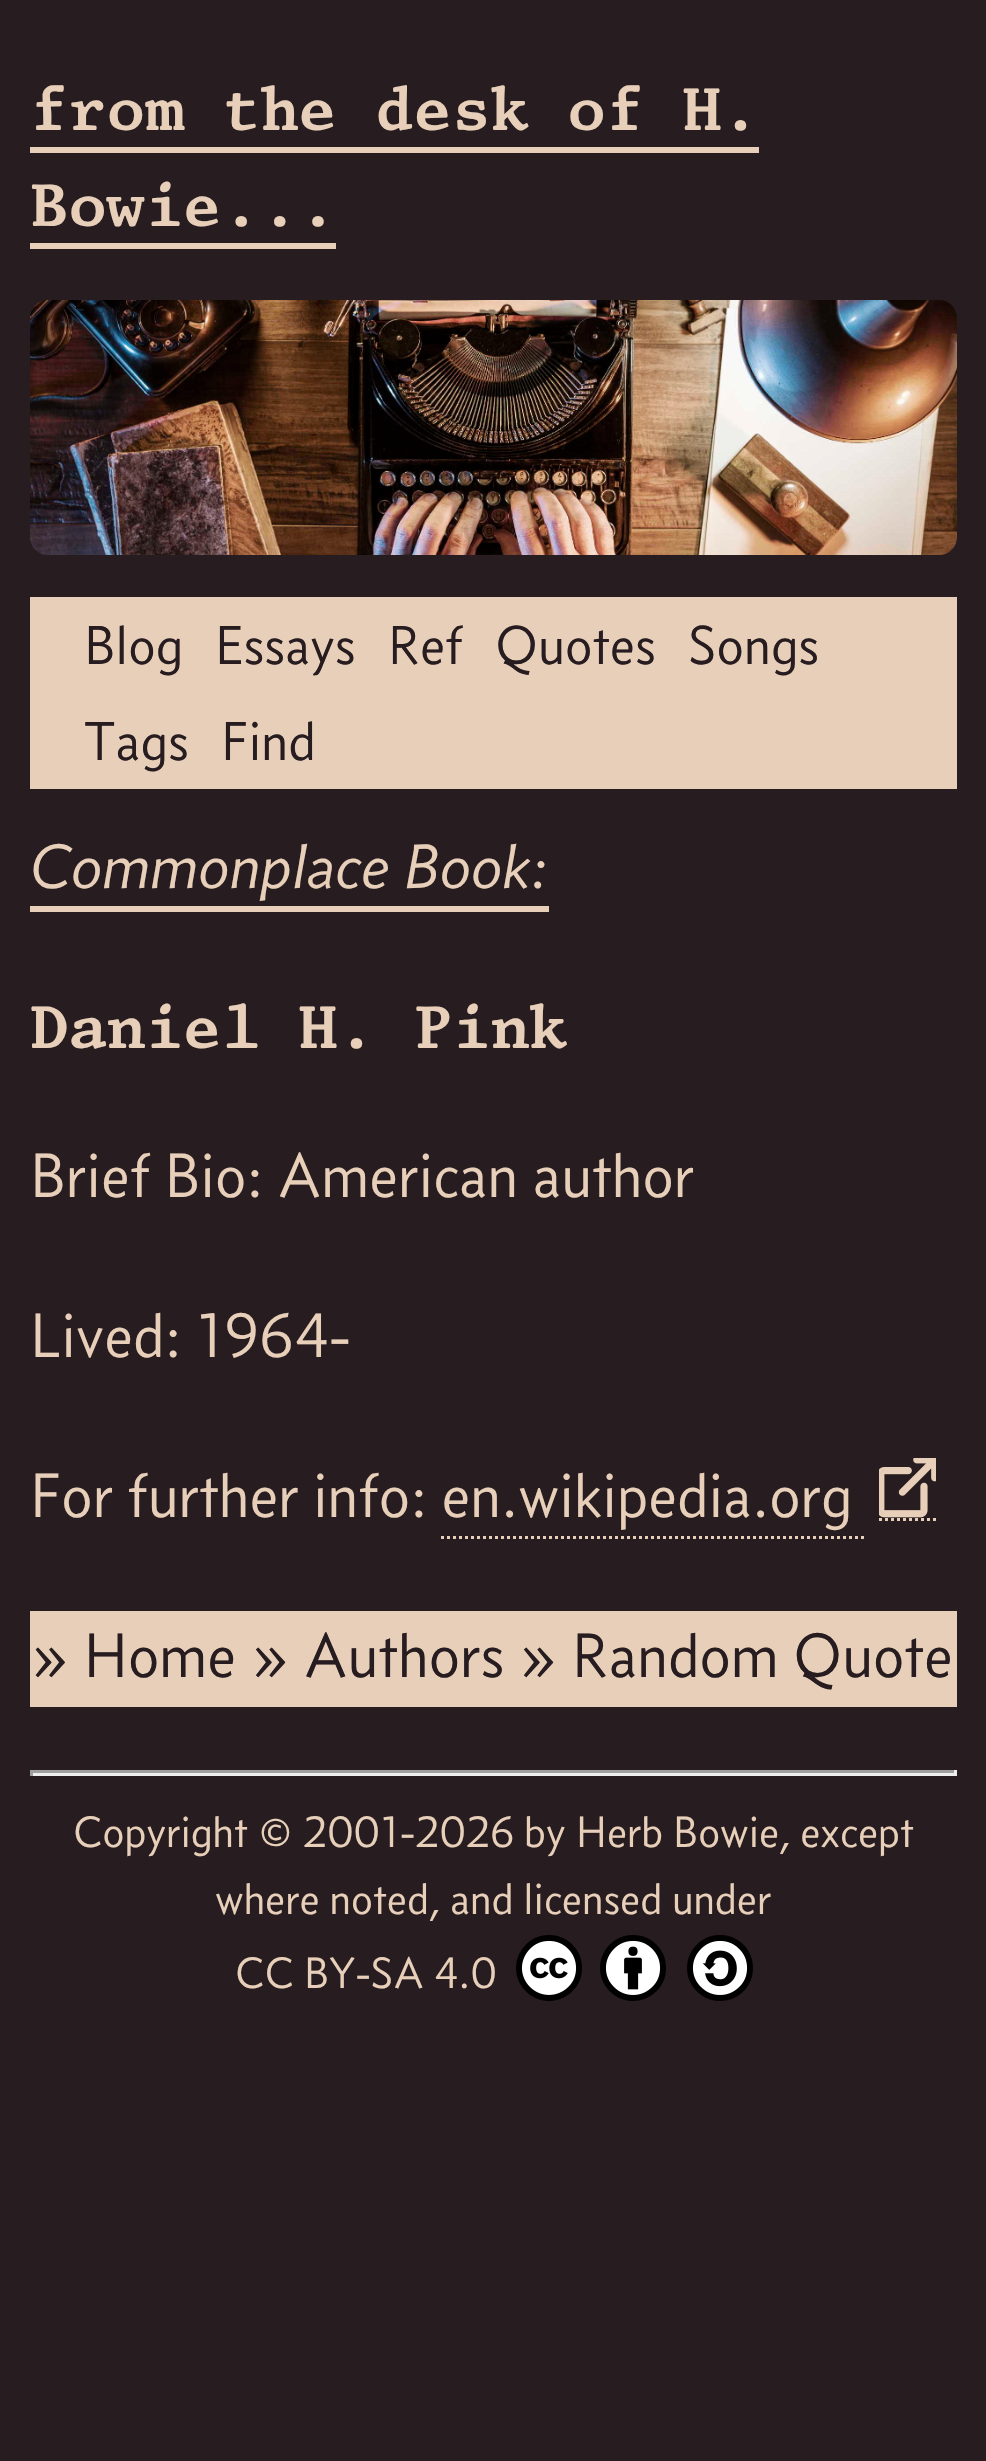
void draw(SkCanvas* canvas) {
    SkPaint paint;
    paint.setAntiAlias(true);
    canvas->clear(0xFF271C1F);
    SkFont font1(fontMgr->matchFamilyStyle("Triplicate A", SkFontStyle::Bold()), 64);
    font1.setSubpixel(true);
    paint.setColor(0xFFE7CFB9);
    canvas->drawString("from the desk of H.", 30, 130, font1, paint);
    canvas->drawRect(SkRect::MakeXYWH(30, 147, 729, 6), paint);
    canvas->drawString("Bowie...", 30, 226, font1, paint);
    canvas->drawRect(SkRect::MakeXYWH(30, 243, 306, 6), paint);
    canvas->drawImageRect(SkImages::DeferredFromEncodedData(SkData::MakeFromFileName("img1.png")), SkRect::MakeXYWH(30, 300, 927, 255), SkSamplingOptions());
    canvas->drawRect(SkRect::MakeXYWH(30, 597, 927, 192), paint);
    SkFont font2(fontMgr->matchFamilyStyle("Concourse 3", SkFontStyle::Normal()), 56);
    font2.setSubpixel(true);
    paint.setColor(0xFF271C1F);
    canvas->drawString("Blog", 84, 664, font2, paint);
    canvas->drawString("Essays", 215, 664, font2, paint);
    canvas->drawString("Ref", 388, 664, font2, paint);
    canvas->drawString("Quotes", 495, 664, font2, paint);
    canvas->drawString("Songs", 688, 664, font2, paint);
    canvas->drawString("Tags", 84, 760, font2, paint);
    canvas->drawString("Find", 221, 760, font2, paint);
    SkFont font3(fontMgr->matchFamilyStyle("Concourse 3", SkFontStyle(300, SkFontStyle::kNormal_Width, SkFontStyle::kItalic_Slant)), 64);
    font3.setSubpixel(true);
    paint.setColor(0xFFE7CFB9);
    canvas->drawString("Commonplace Book:", 30, 888, font3, paint);
    canvas->drawRect(SkRect::MakeXYWH(30, 906, 519, 6), paint);
    SkFont font4(fontMgr->matchFamilyStyle("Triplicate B", SkFontStyle::Bold()), 64);
    font4.setSubpixel(true);
    canvas->drawString("Daniel H. Pink", 30, 1048, font4, paint);
    SkFont font5(fontMgr->matchFamilyStyle("Concourse 3", SkFontStyle::Normal()), 64);
    font5.setSubpixel(true);
    canvas->drawString("Brief Bio: American author", 30, 1197, font5, paint);
    canvas->drawString("Lived: 1964-", 30, 1357, font5, paint);
    paint.setStyle(SkPaint::kStroke_Style);
    paint.setStrokeWidth(3);
    paint.setPathEffect(SkDashPathEffect::Make({{3, 3}}, 0));
    canvas->drawPath(SkPathBuilder().moveTo(441, 1537.5f).lineTo(867, 1537.5f).detach(), paint);
    paint.setPathEffect(nullptr);
    paint.setPathEffect(SkDashPathEffect::Make({{3, 3}}, 0));
    canvas->drawPath(SkPathBuilder().moveTo(879, 1519.5f).lineTo(936, 1519.5f).detach(), paint);
    paint.setPathEffect(nullptr);
    canvas->drawImageRect(SkImages::DeferredFromEncodedData(SkData::MakeFromFileName("img2.png")), SkRect::MakeXYWH(879, 1458, 57, 60), SkSamplingOptions());
    paint.setStyle(SkPaint::kFill_Style);
    canvas->drawString("For further info: en.wikipedia.org", 30, 1517, font5, paint);
    canvas->drawRect(SkRect::MakeXYWH(30, 1611, 927, 96), paint);
    paint.setColor(0xFF271C1F);
    canvas->drawString("» Home » Authors » Random Quote", 30, 1677, font5, paint);
    paint.setColor(0xFF9F9F9F);
    canvas->drawRect(SkRect::MakeXYWH(30, 1770, 927, 3), paint);
    paint.setColor(0xFFEEEEEE);
    canvas->drawRect(SkRect::MakeXYWH(954, 1770, 3, 6), paint);
    canvas->drawRect(SkRect::MakeXYWH(30, 1773, 927, 3), paint);
    paint.setColor(0xFF9F9F9F);
    canvas->drawRect(SkRect::MakeXYWH(30, 1770, 3, 6), paint);
    SkFont font6(fontMgr->matchFamilyStyle("Concourse 3", SkFontStyle::Normal()), 44.75f);
    font6.setSubpixel(true);
    paint.setColor(0xFFE7CFB9);
    canvas->drawString("Copyright © 2001-2026 by", 73, 1847, font6, paint);
    canvas->drawString("Herb Bowie, except", 576, 1847, font6, paint);
    canvas->drawString("where noted, and licensed under", 215, 1914, font6, paint);
    canvas->drawString("CC BY-SA 4.0", 235, 1988, font6, paint);
    canvas->drawImageRect(SkImages::DeferredFromEncodedData(SkData::MakeFromFileName("img3.png")), SkRect::MakeXYWH(516, 1935, 66, 66), SkSamplingOptions());
    canvas->drawImageRect(SkImages::DeferredFromEncodedData(SkData::MakeFromFileName("img4.png")), SkRect::MakeXYWH(600, 1935, 66, 66), SkSamplingOptions());
    canvas->drawImageRect(SkImages::DeferredFromEncodedData(SkData::MakeFromFileName("img5.png")), SkRect::MakeXYWH(687, 1935, 66, 66), SkSamplingOptions());
}
